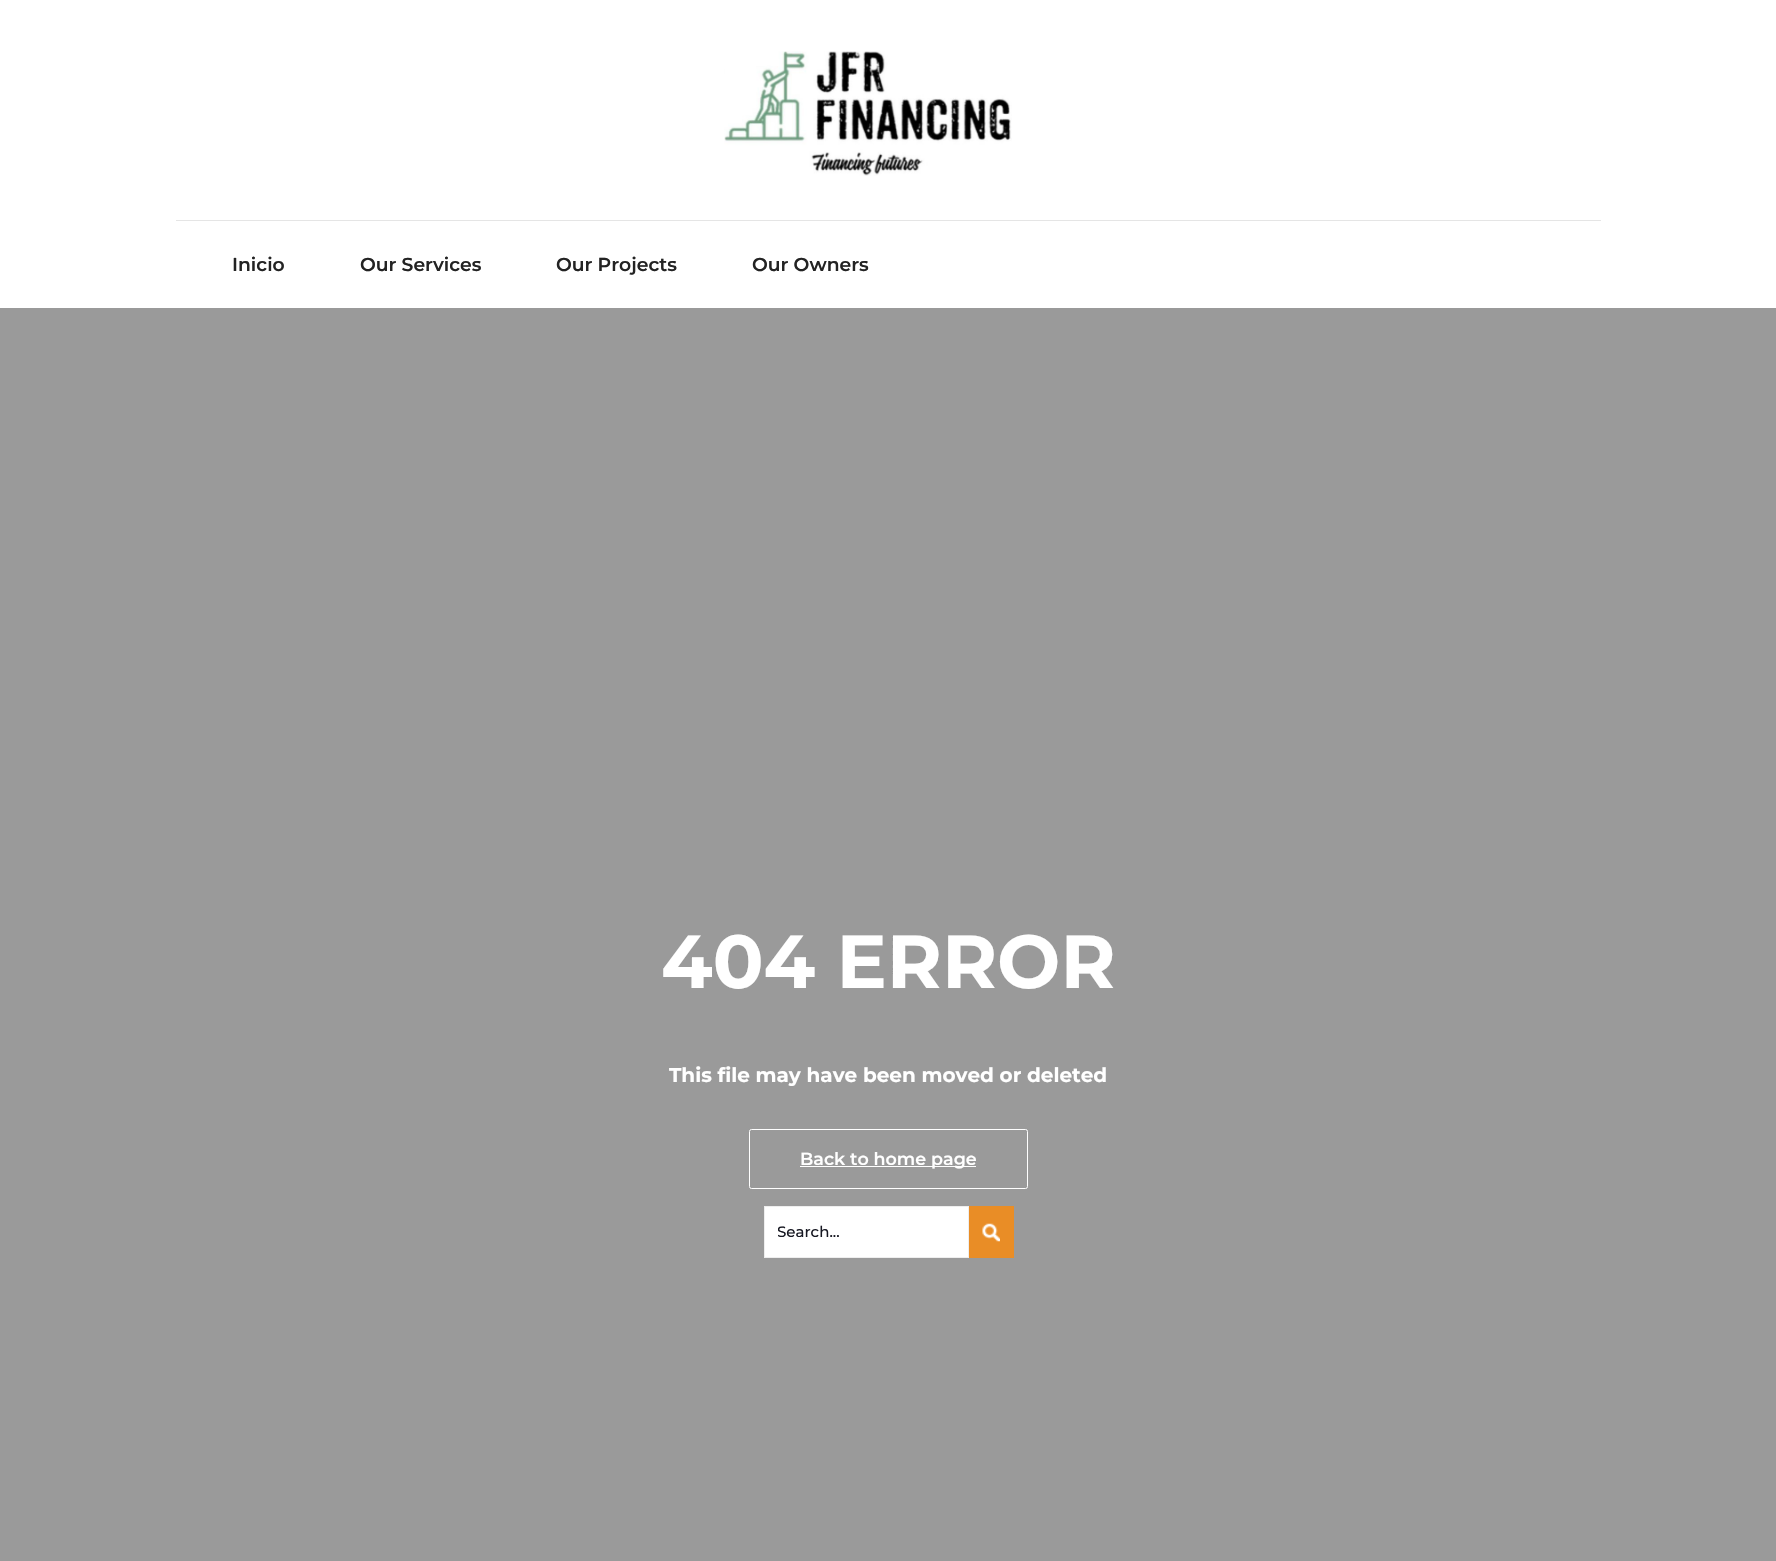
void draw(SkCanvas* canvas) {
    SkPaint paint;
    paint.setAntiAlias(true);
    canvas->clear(0xFFFFFFFF);
    canvas->drawImageRect(SkImages::DeferredFromEncodedData(SkData::MakeFromFileName("img1.png")), SkRect::MakeXYWH(724, 51, 288, 125), SkSamplingOptions());
    paint.setColor(0xFFE5E5E5);
    canvas->drawRect(SkRect::MakeXYWH(176, 220, 1425, 1), paint);
    SkFont font1(fontMgr->matchFamilyStyle("Montserrat", SkFontStyle(600, SkFontStyle::kNormal_Width, SkFontStyle::kUpright_Slant)), 18.75f);
    font1.setSubpixel(true);
    paint.setColor(0xFF232323);
    canvas->drawString("Inicio", 232, 271, font1, paint);
    canvas->drawString("Our Services", 360, 271, font1, paint);
    canvas->drawString("Our Projects", 556, 271, font1, paint);
    canvas->drawString("Our Owners", 752, 271, font1, paint);
    paint.setColor(0xFF9A9A9A);
    canvas->drawRect(SkRect::MakeXYWH(0, 308, 1776, 1253), paint);
    SkFont font2(fontMgr->matchFamilyStyle("Montserrat", SkFontStyle::Bold()), 75);
    font2.setSubpixel(true);
    paint.setColor(0xFFFFFFFF);
    canvas->drawString("404 ERROR", 661, 988, font2, paint);
    SkFont font3(fontMgr->matchFamilyStyle("Montserrat", SkFontStyle::Bold()), 20);
    font3.setSubpixel(true);
    canvas->drawString("This file may have been moved or deleted", 669, 1082, font3, paint);
    paint.setStyle(SkPaint::kStroke_Style);
    paint.setStrokeWidth(1);
    canvas->drawRoundRect(SkRect::MakeXYWH(749.5f, 1129.5f, 278, 59), 2, 2, paint);
    paint.setStyle(SkPaint::kFill_Style);
    canvas->drawRect(SkRect::MakeXYWH(800, 1166, 176, 1), paint);
    SkFont font4(fontMgr->matchFamilyStyle("Montserrat", SkFontStyle(600, SkFontStyle::kNormal_Width, SkFontStyle::kUpright_Slant)), 17.5f);
    font4.setSubpixel(true);
    canvas->drawString("Back to home page", 800, 1165, font4, paint);
    canvas->drawRect(SkRect::MakeXYWH(764.5f, 1206.5f, 204, 51), paint);
    paint.setStyle(SkPaint::kStroke_Style);
    paint.setColor(0xFFEEEEEE);
    canvas->drawRect(SkRect::MakeXYWH(764.5f, 1206.5f, 204, 51), paint);
    canvas->save();
    canvas->clipRect(SkRect::MakeXYWH(778, 1223, 177, 18));
    SkFont font5(fontMgr->matchFamilyStyle("Montserrat", SkFontStyle(500, SkFontStyle::kNormal_Width, SkFontStyle::kUpright_Slant)), 15);
    font5.setSubpixel(true);
    paint.setStyle(SkPaint::kFill_Style);
    paint.setColor(0xFF171822);
    canvas->drawString("Search...", 777, 1237, font5, paint);
    canvas->restore();
    paint.setColor(0xFFE98D26);
    canvas->drawRect(SkRect::MakeXYWH(969, 1206, 45, 52), paint);
    canvas->drawImageRect(SkImages::DeferredFromEncodedData(SkData::MakeFromFileName("img2.png")), SkRect::MakeXYWH(982, 1223, 18, 19), SkSamplingOptions());
}
